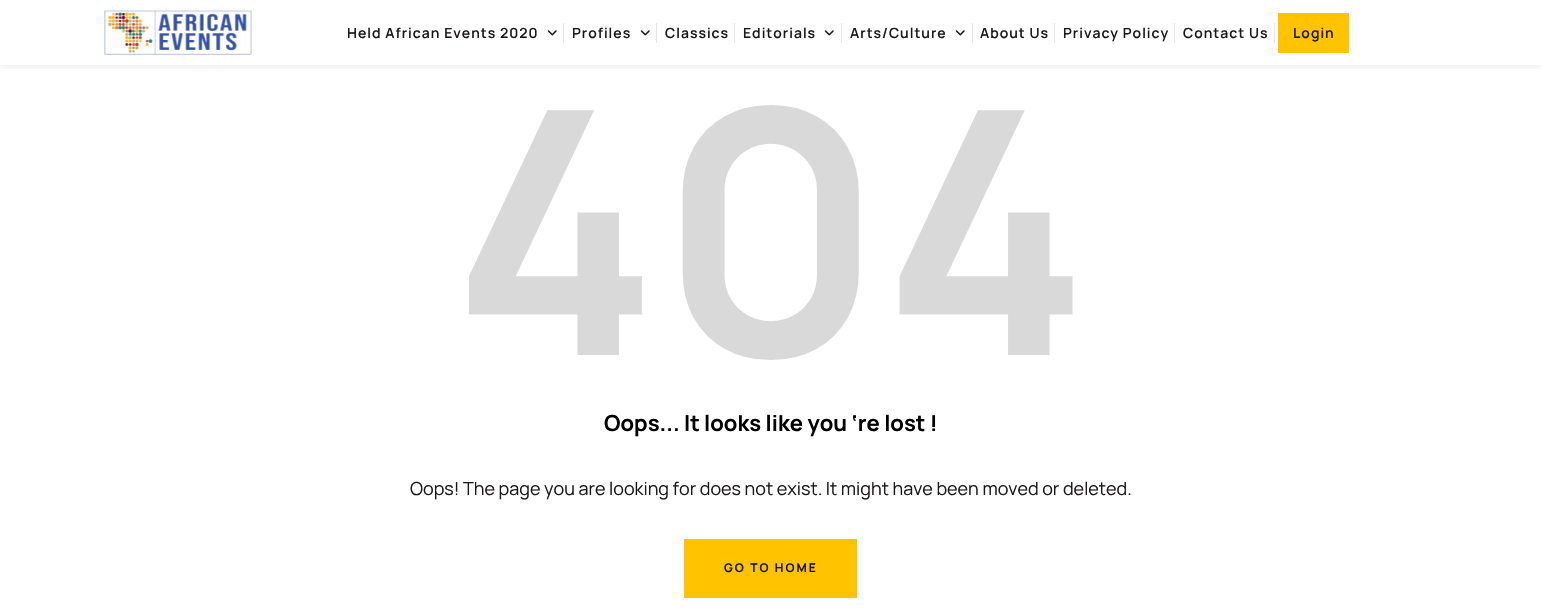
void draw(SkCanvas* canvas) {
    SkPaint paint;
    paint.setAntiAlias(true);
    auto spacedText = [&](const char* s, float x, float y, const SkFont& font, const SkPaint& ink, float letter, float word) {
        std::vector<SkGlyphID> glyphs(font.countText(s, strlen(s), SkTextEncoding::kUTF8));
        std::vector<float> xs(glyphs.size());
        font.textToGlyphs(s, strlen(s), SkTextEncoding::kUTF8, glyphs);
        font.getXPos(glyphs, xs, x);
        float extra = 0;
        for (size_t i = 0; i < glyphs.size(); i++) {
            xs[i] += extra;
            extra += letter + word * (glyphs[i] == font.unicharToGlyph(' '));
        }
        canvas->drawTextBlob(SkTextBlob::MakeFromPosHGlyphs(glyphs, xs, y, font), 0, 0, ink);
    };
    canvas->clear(0xFFFFFFFF);
    canvas->save();
    canvas->clipRect(SkRect::MakeXYWH(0, 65, 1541, 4));
    paint.setColor(0x1A000000);
    paint.setMaskFilter(SkMaskFilter::MakeBlur(kNormal_SkBlurStyle, 5));
    canvas->drawRect(SkRect::MakeXYWH(0, 0, 1541, 65), paint);
    paint.setMaskFilter(nullptr);
    canvas->restore();
    canvas->drawImageRect(SkImages::DeferredFromEncodedData(SkData::MakeFromFileName("img1.png")), SkRect::MakeXYWH(104, 10, 148, 45), SkSamplingOptions());
    paint.setColor(0xFFE6E6E6);
    canvas->drawRect(SkRect::MakeXYWH(563, 23, 1, 20), paint);
    SkFont font1(fontMgr->matchFamilyStyle("Manrope", SkFontStyle(600, SkFontStyle::kNormal_Width, SkFontStyle::kUpright_Slant)), 14);
    font1.setSubpixel(true);
    paint.setColor(0xFF1A1719);
    spacedText("Held African Events 2020", 347, 38, font1, paint, 1, 0);
    canvas->drawImageRect(SkImages::DeferredFromEncodedData(SkData::MakeFromFileName("img2.png")), SkRect::MakeXYWH(547, 30, 10, 6), SkSamplingOptions());
    paint.setColor(0xFFE6E6E6);
    canvas->drawRect(SkRect::MakeXYWH(656, 23, 1, 20), paint);
    paint.setColor(0xFF1A1719);
    spacedText("Profiles", 572, 38, font1, paint, 1, 0);
    canvas->drawImageRect(SkImages::DeferredFromEncodedData(SkData::MakeFromFileName("img2.png")), SkRect::MakeXYWH(640, 30, 10, 6), SkSamplingOptions());
    paint.setColor(0xFFE6E6E6);
    canvas->drawRect(SkRect::MakeXYWH(734, 23, 1, 20), paint);
    paint.setColor(0xFF1A1719);
    spacedText("Classics", 665, 38, font1, paint, 1, 0);
    paint.setColor(0xFFE6E6E6);
    canvas->drawRect(SkRect::MakeXYWH(841, 23, 1, 20), paint);
    paint.setColor(0xFF1A1719);
    spacedText("Editorials", 743, 38, font1, paint, 1, 0);
    canvas->drawImageRect(SkImages::DeferredFromEncodedData(SkData::MakeFromFileName("img2.png")), SkRect::MakeXYWH(824, 30, 10, 6), SkSamplingOptions());
    paint.setColor(0xFFE6E6E6);
    canvas->drawRect(SkRect::MakeXYWH(972, 23, 1, 20), paint);
    paint.setColor(0xFF1A1719);
    spacedText("Arts/Culture", 850, 38, font1, paint, 1, 0);
    canvas->drawImageRect(SkImages::DeferredFromEncodedData(SkData::MakeFromFileName("img2.png")), SkRect::MakeXYWH(955, 30, 10, 6), SkSamplingOptions());
    paint.setColor(0xFFE6E6E6);
    canvas->drawRect(SkRect::MakeXYWH(1054, 23, 1, 20), paint);
    paint.setColor(0xFF1A1719);
    spacedText("About Us", 980, 38, font1, paint, 1, 0);
    paint.setColor(0xFFE6E6E6);
    canvas->drawRect(SkRect::MakeXYWH(1174, 23, 1, 20), paint);
    paint.setColor(0xFF1A1719);
    spacedText("Privacy Policy", 1063, 38, font1, paint, 1, 0);
    paint.setColor(0xFFE6E6E6);
    canvas->drawRect(SkRect::MakeXYWH(1274, 23, 1, 20), paint);
    paint.setColor(0xFF1A1719);
    spacedText("Contact Us", 1183, 38, font1, paint, 1, 0);
    paint.setColor(0xFFFFC300);
    canvas->drawRect(SkRect::MakeXYWH(1278, 13, 71, 40), paint);
    paint.setColor(0xFF1A1719);
    spacedText("Login", 1293, 38, font1, paint, 1, 0);
    SkFont font2(fontMgr->matchFamilyStyle("Manrope", SkFontStyle::Bold()), 340);
    font2.setSubpixel(true);
    paint.setColor(0xFFD9D9D9);
    canvas->drawString("404", 452, 355, font2, paint);
    SkFont font3(fontMgr->matchFamilyStyle("Manrope", SkFontStyle::Bold()), 22);
    font3.setSubpixel(true);
    paint.setColor(0xFF000000);
    canvas->drawString("Oops... It looks like you ‘re lost !", 604, 431, font3, paint);
    SkFont font4(fontMgr->matchFamilyStyle("Manrope", SkFontStyle::Normal()), 18);
    font4.setSubpixel(true);
    paint.setColor(0xFF1A1719);
    canvas->drawString("Oops! The page you are looking for does not exist. It might have been moved or deleted.", 410, 495, font4, paint);
    paint.setColor(0xFFFFC300);
    canvas->drawRect(SkRect::MakeXYWH(684, 539, 173, 59), paint);
    SkFont font5(fontMgr->matchFamilyStyle("Manrope", SkFontStyle::Bold()), 12);
    font5.setSubpixel(true);
    paint.setColor(0xFF1A1719);
    spacedText("GO TO HOME", 724, 572, font5, paint, 2, 0);
}
